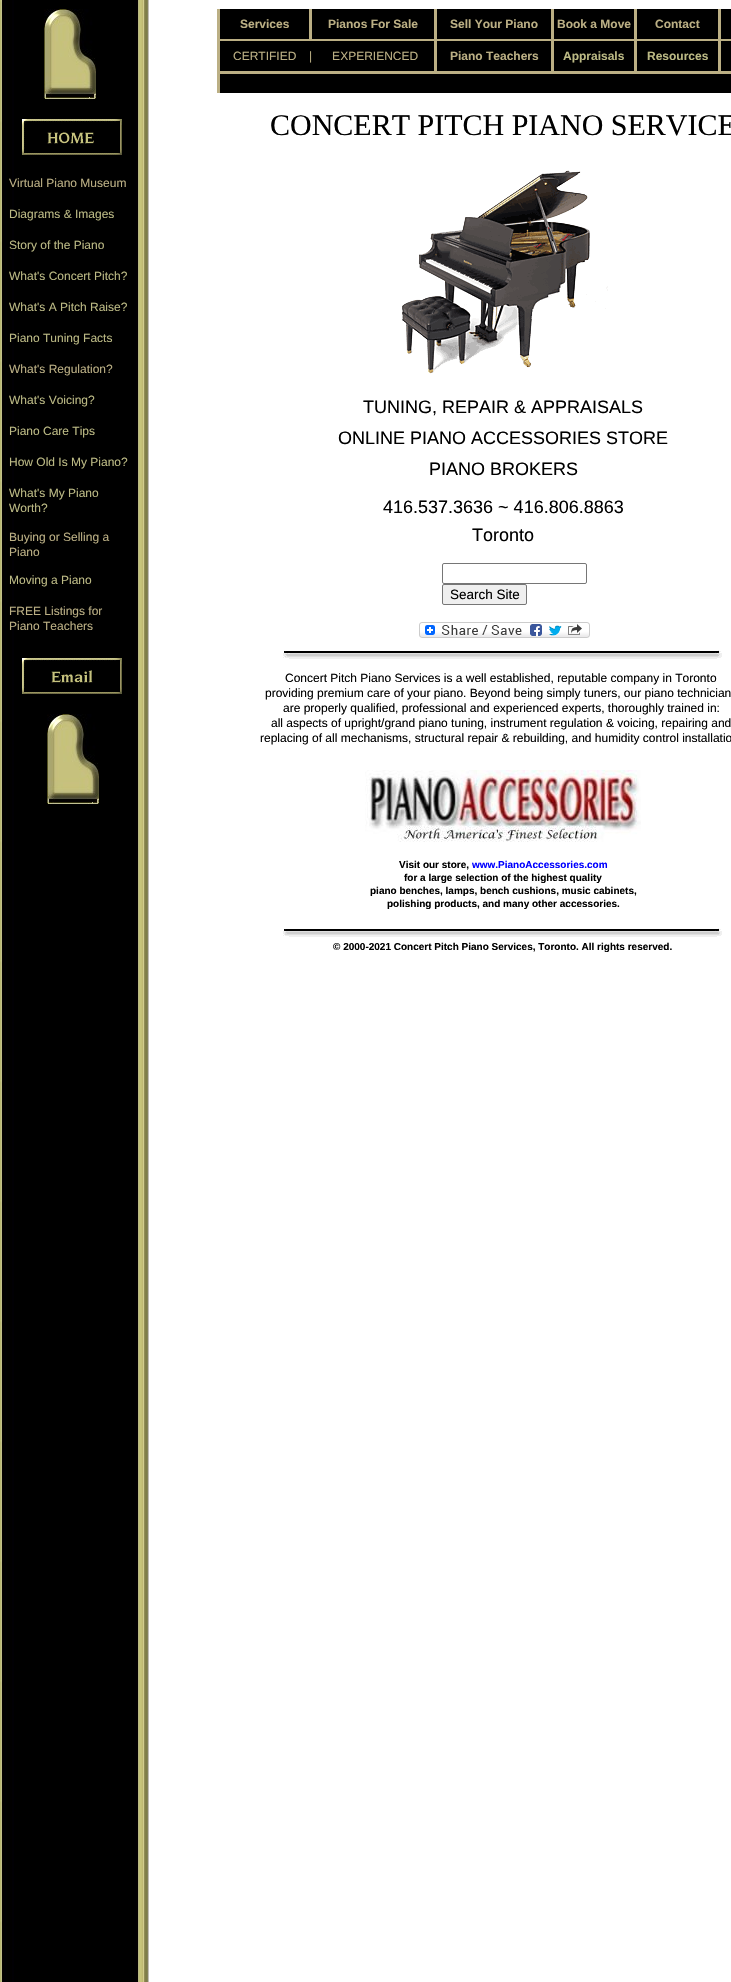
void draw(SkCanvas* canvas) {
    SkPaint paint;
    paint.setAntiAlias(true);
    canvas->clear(0xFFFFFFFF);
    canvas->drawImageRect(SkImages::DeferredFromEncodedData(SkData::MakeFromFileName("img1.png")), SkRect::MakeXYWH(0, 0, 149, 1982), SkSamplingOptions());
    canvas->drawImageRect(SkImages::DeferredFromEncodedData(SkData::MakeFromFileName("img2.png")), SkRect::MakeXYWH(44, 9, 52, 90), SkSamplingOptions());
    paint.setColor(0xFFBBAF84);
    canvas->drawRect(SkRect::MakeXYWH(217, 9, 514, 84), paint);
    paint.setColor(0xFF000000);
    canvas->drawRect(SkRect::MakeXYWH(220, 9, 89, 30), paint);
    SkFont font1(fontMgr->matchFamilyStyle("Liberation Sans", SkFontStyle::Bold()), 12);
    font1.setSubpixel(true);
    paint.setColor(0xFFBBAF84);
    canvas->drawString("Services", 240, 28, font1, paint);
    paint.setColor(0xFF000000);
    canvas->drawRect(SkRect::MakeXYWH(312, 9, 122, 30), paint);
    paint.setColor(0xFFBBAF84);
    canvas->drawString("Pianos For Sale", 328, 28, font1, paint);
    paint.setColor(0xFF000000);
    canvas->drawRect(SkRect::MakeXYWH(437, 9, 114, 30), paint);
    paint.setColor(0xFFBBAF84);
    canvas->drawString("Sell Your Piano", 450, 28, font1, paint);
    paint.setColor(0xFF000000);
    canvas->drawRect(SkRect::MakeXYWH(554, 9, 80, 30), paint);
    paint.setColor(0xFFBBAF84);
    canvas->drawString("Book a Move", 557, 28, font1, paint);
    paint.setColor(0xFF000000);
    canvas->drawRect(SkRect::MakeXYWH(637, 9, 81, 30), paint);
    paint.setColor(0xFFBBAF84);
    canvas->drawString("Contact", 655, 28, font1, paint);
    paint.setColor(0xFF000000);
    canvas->drawRect(SkRect::MakeXYWH(721, 9, 10, 30), paint);
    canvas->drawRect(SkRect::MakeXYWH(220, 41, 214, 30), paint);
    SkFont font2(fontMgr->matchFamilyStyle("Liberation Sans", SkFontStyle::Normal()), 12);
    font2.setSubpixel(true);
    paint.setColor(0xFFBBAF84);
    canvas->drawString("CERTIFIED", 233, 60, font2, paint);
    canvas->drawString("|      EXPERIENCED", 309, 60, font2, paint);
    paint.setColor(0xFF000000);
    canvas->drawRect(SkRect::MakeXYWH(437, 41, 114, 30), paint);
    paint.setColor(0xFFBBAF84);
    canvas->drawString("Piano Teachers", 450, 60, font1, paint);
    paint.setColor(0xFF000000);
    canvas->drawRect(SkRect::MakeXYWH(554, 41, 80, 30), paint);
    paint.setColor(0xFFBBB984);
    canvas->drawString("Appraisals", 563, 60, font1, paint);
    paint.setColor(0xFF000000);
    canvas->drawRect(SkRect::MakeXYWH(637, 41, 81, 30), paint);
    paint.setColor(0xFFBBB984);
    canvas->drawString("Resources", 647, 60, font1, paint);
    paint.setColor(0xFF000000);
    canvas->drawRect(SkRect::MakeXYWH(721, 41, 10, 30), paint);
    canvas->drawRect(SkRect::MakeXYWH(220, 74, 511, 19), paint);
    canvas->drawImageRect(SkImages::DeferredFromEncodedData(SkData::MakeFromFileName("img3.png")), SkRect::MakeXYWH(22, 119, 100, 36), SkSamplingOptions());
    SkFont font3(fontMgr->matchFamilyStyle("Liberation Serif", SkFontStyle::Normal()), 30);
    font3.setSubpixel(true);
    canvas->drawString("CONCERT PITCH PIANO SERVICE", 270, 135, font3, paint);
    paint.setColor(0xFFBBAF84);
    canvas->drawString("Virtual Piano Museum", 9, 187, font2, paint);
    canvas->drawImageRect(SkImages::DeferredFromEncodedData(SkData::MakeFromFileName("img4.png")), SkRect::MakeXYWH(402, 170, 206, 204), SkSamplingOptions());
    paint.setColor(0xFFBBB984);
    canvas->drawString("Diagrams & Images", 9, 218, font2, paint);
    canvas->drawString("Story of the Piano", 9, 249, font2, paint);
    canvas->drawString("What's Concert Pitch?", 9, 280, font2, paint);
    canvas->drawString("What's A Pitch Raise?", 9, 311, font2, paint);
    canvas->drawString("Piano Tuning Facts", 9, 342, font2, paint);
    paint.setColor(0xFFBBAF84);
    canvas->drawString("What's Regulation?", 9, 373, font2, paint);
    paint.setColor(0xFFBBB984);
    canvas->drawString("What's Voicing?", 9, 404, font2, paint);
    SkFont font4(fontMgr->matchFamilyStyle("Liberation Sans", SkFontStyle::Normal()), 18);
    font4.setSubpixel(true);
    paint.setColor(0xFF000000);
    canvas->drawString("TUNING, REPAIR & APPRAISALS", 363, 413, font4, paint);
    paint.setColor(0xFFBBB984);
    canvas->drawString("Piano Care Tips", 9, 435, font2, paint);
    paint.setColor(0xFF000000);
    canvas->drawString("ONLINE PIANO ACCESSORIES STORE", 338, 444, font4, paint);
    paint.setColor(0xFFBBB984);
    canvas->drawString("How Old Is My Piano?", 9, 466, font2, paint);
    paint.setColor(0xFF000000);
    canvas->drawString("PIANO BROKERS", 429, 475, font4, paint);
    paint.setColor(0xFFBBB984);
    canvas->drawString("What's My Piano", 9, 497, font2, paint);
    canvas->drawString("Worth?", 9, 512, font2, paint);
    paint.setColor(0xFF000000);
    canvas->drawString("416.537.3636 ~ 416.806.8863", 383, 513, font4, paint);
    paint.setColor(0xFFBBAF84);
    canvas->drawString("Buying or Selling a", 9, 541, font2, paint);
    canvas->drawString("Piano", 9, 556, font2, paint);
    paint.setColor(0xFF000000);
    canvas->drawString("Toronto", 472, 541, font4, paint);
    paint.setColor(0xFFBBB984);
    canvas->drawString("Moving a Piano", 9, 584, font2, paint);
    paint.setStyle(SkPaint::kStroke_Style);
    paint.setStrokeWidth(1);
    paint.setColor(0xFF767676);
    canvas->drawRoundRect(SkRect::MakeXYWH(442.5f, 563.5f, 144, 20), 1.5f, 1.5f, paint);
    paint.setStyle(SkPaint::kFill_Style);
    paint.setColor(0xFFEFEFEF);
    canvas->drawRoundRect(SkRect::MakeXYWH(442.5f, 584.5f, 84, 20), 1.5f, 1.5f, paint);
    paint.setStyle(SkPaint::kStroke_Style);
    paint.setColor(0xFF767676);
    canvas->drawRoundRect(SkRect::MakeXYWH(442.5f, 584.5f, 84, 20), 1.5f, 1.5f, paint);
    SkFont font5(fontMgr->matchFamilyStyle("Liberation Sans", SkFontStyle::Normal()), 13.5f);
    font5.setSubpixel(true);
    paint.setStyle(SkPaint::kFill_Style);
    paint.setColor(0xFF000000);
    canvas->drawString("Search Site", 450, 599, font5, paint);
    paint.setColor(0xFFBBAF84);
    canvas->drawString("FREE Listings for", 9, 615, font2, paint);
    canvas->drawString("Piano Teachers", 9, 630, font2, paint);
    canvas->drawImageRect(SkImages::DeferredFromEncodedData(SkData::MakeFromFileName("img5.png")), SkRect::MakeXYWH(419, 622, 171, 16), SkSamplingOptions());
    canvas->drawImageRect(SkImages::DeferredFromEncodedData(SkData::MakeFromFileName("img6.png")), SkRect::MakeXYWH(283, 650, 439, 9), SkSamplingOptions());
    canvas->drawImageRect(SkImages::DeferredFromEncodedData(SkData::MakeFromFileName("img7.png")), SkRect::MakeXYWH(22, 658, 100, 36), SkSamplingOptions());
    paint.setColor(0xFF000000);
    canvas->drawString("Concert Pitch Piano Services is a well established, reputable company in Toronto", 285, 682, font2, paint);
    canvas->drawString("providing premium care of your piano. Beyond being simply tuners, our piano technician", 265, 697, font2, paint);
    canvas->drawString("are properly qualified, professional and experienced experts, thoroughly trained in:", 283, 712, font2, paint);
    canvas->drawString("all aspects of upright/grand piano tuning, instrument regulation & voicing, repairing and", 271, 727, font2, paint);
    canvas->drawString("replacing of all mechanisms, structural repair & rebuilding, and humidity control installatio", 260, 742, font2, paint);
    canvas->drawImageRect(SkImages::DeferredFromEncodedData(SkData::MakeFromFileName("img2.png")), SkRect::MakeXYWH(47, 714, 52, 90), SkSamplingOptions());
    canvas->drawImageRect(SkImages::DeferredFromEncodedData(SkData::MakeFromFileName("img8.png")), SkRect::MakeXYWH(365, 770, 276, 72), SkSamplingOptions());
    SkFont font6(fontMgr->matchFamilyStyle("Liberation Sans", SkFontStyle::Bold()), 10);
    font6.setSubpixel(true);
    canvas->drawString("Visit our store,", 399, 868, font6, paint);
    paint.setColor(0xFF0000FF);
    canvas->drawString("www.PianoAccessories.com", 472, 868, font6, paint);
    paint.setColor(0xFF000000);
    canvas->drawString("for a large selection of the highest quality", 404, 881, font6, paint);
    canvas->drawString("piano benches, lamps, bench cushions, music cabinets,", 370, 894, font6, paint);
    canvas->drawString("polishing products, and many other accessories.", 387, 907, font6, paint);
    canvas->drawImageRect(SkImages::DeferredFromEncodedData(SkData::MakeFromFileName("img9.png")), SkRect::MakeXYWH(283, 928, 439, 9), SkSamplingOptions());
    canvas->drawString("© 2000-2021 Concert Pitch Piano Services, Toronto. All rights reserved.", 333, 950, font6, paint);
}
